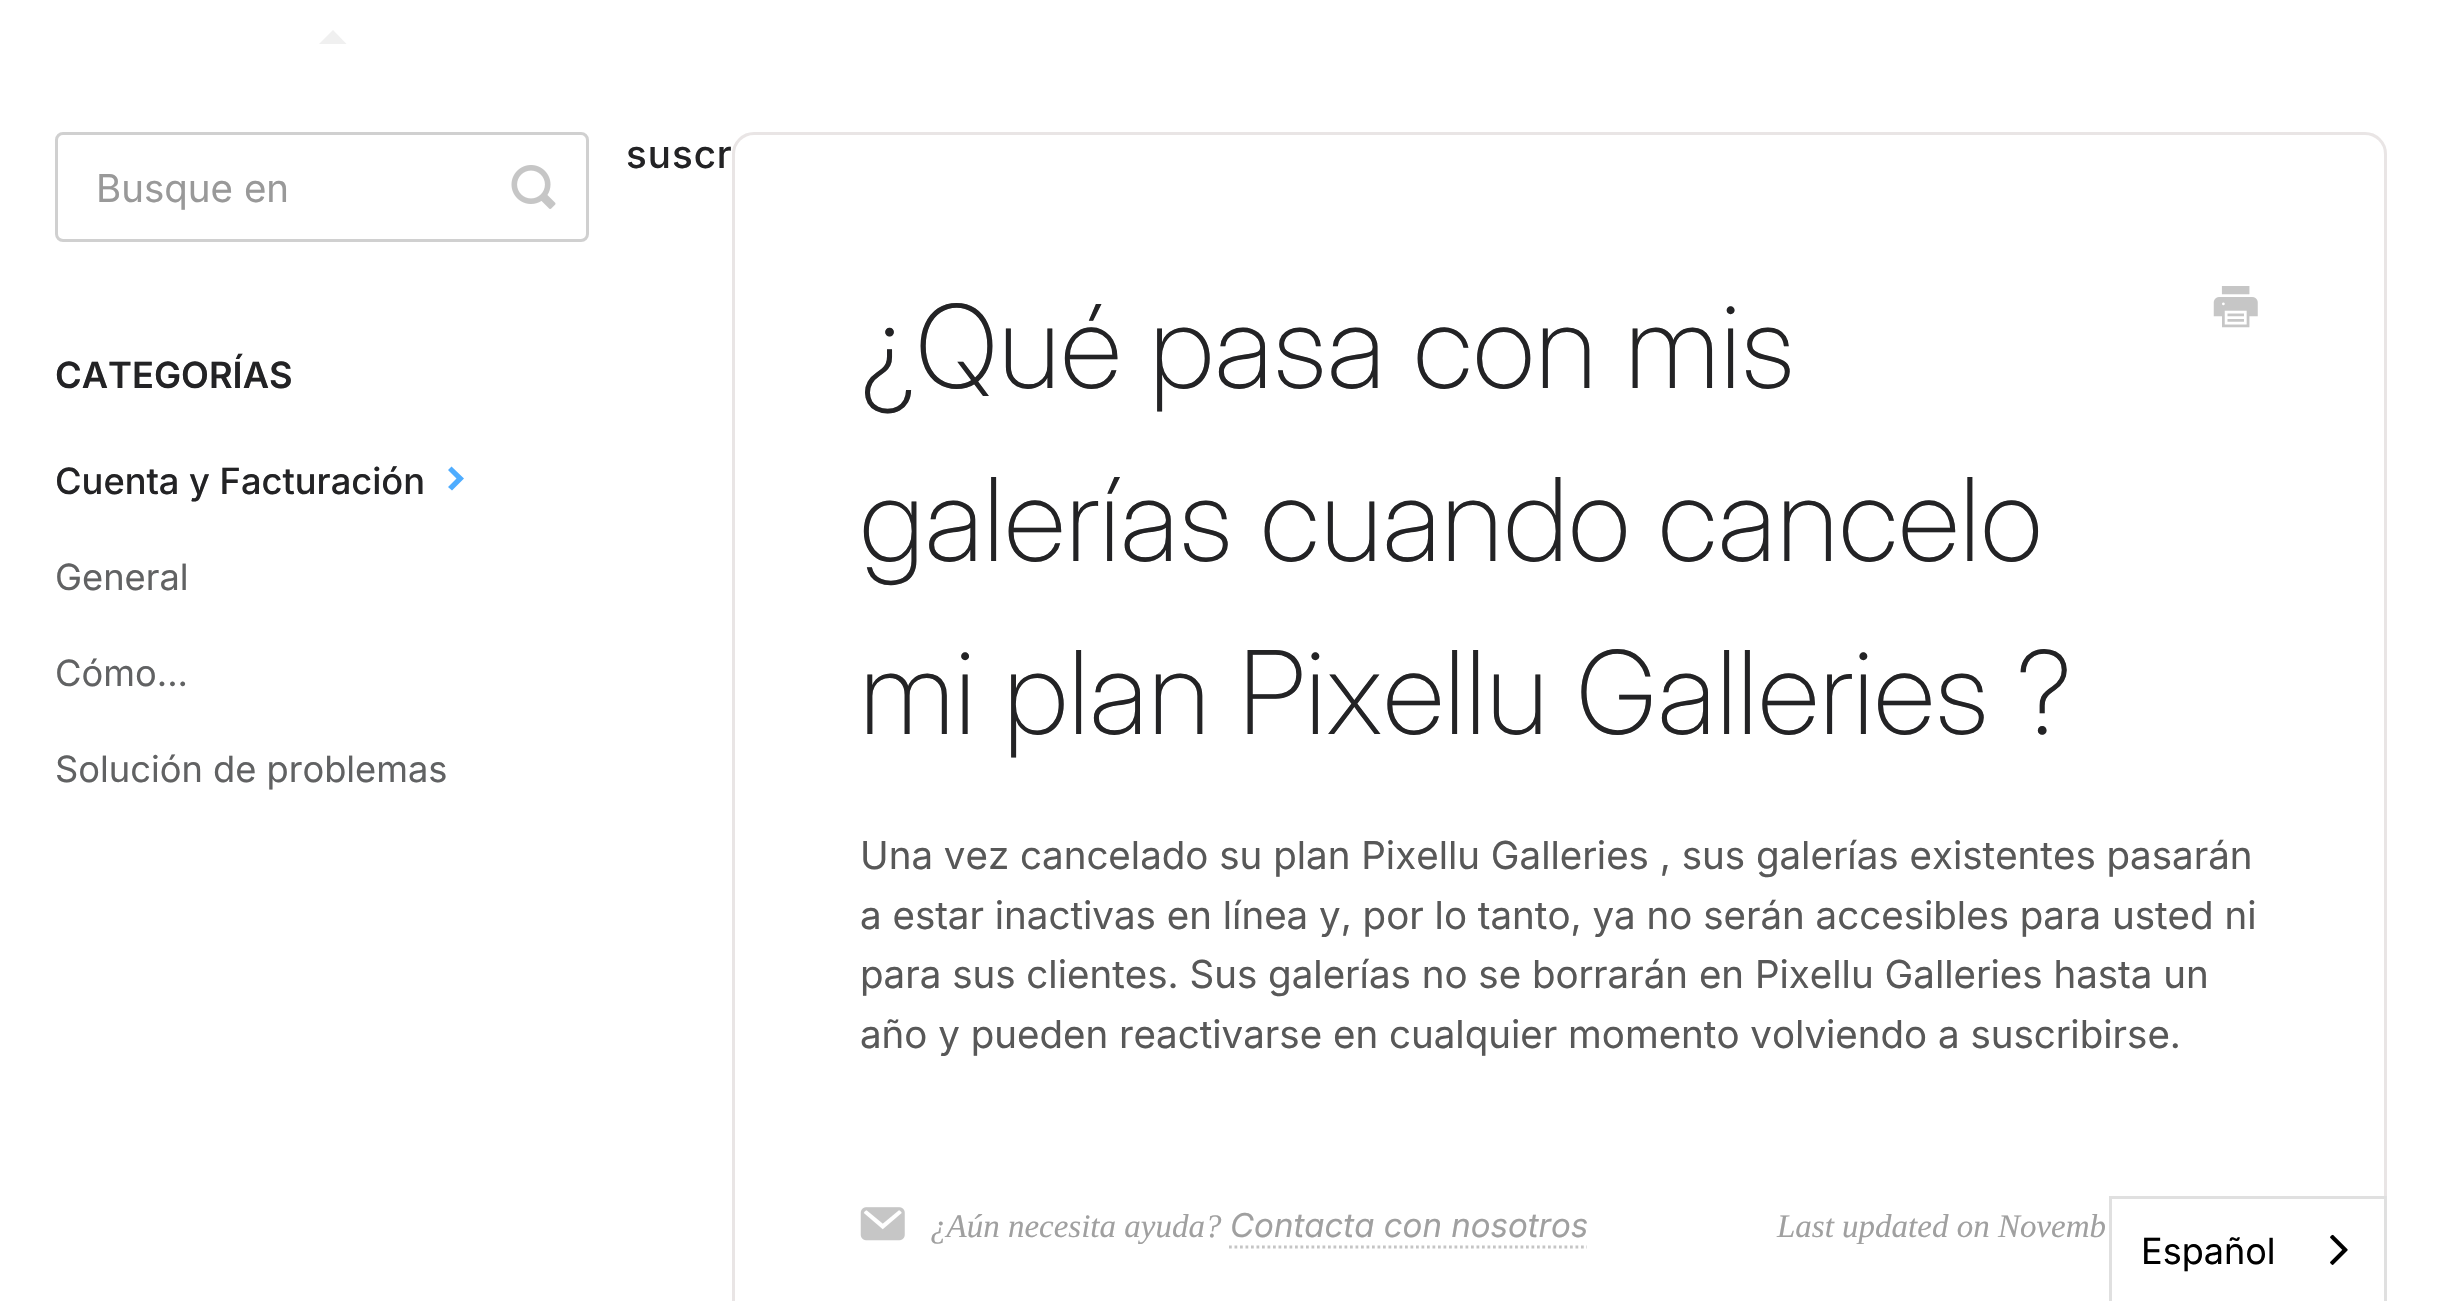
void draw(SkCanvas* canvas) {
    SkPaint paint;
    paint.setAntiAlias(true);
    auto spacedText = [&](const char* s, float x, float y, const SkFont& font, const SkPaint& ink, float letter, float word) {
        std::vector<SkGlyphID> glyphs(font.countText(s, strlen(s), SkTextEncoding::kUTF8));
        std::vector<float> xs(glyphs.size());
        font.textToGlyphs(s, strlen(s), SkTextEncoding::kUTF8, glyphs);
        font.getXPos(glyphs, xs, x);
        float extra = 0;
        for (size_t i = 0; i < glyphs.size(); i++) {
            xs[i] += extra;
            extra += letter + word * (glyphs[i] == font.unicharToGlyph(' '));
        }
        canvas->drawTextBlob(SkTextBlob::MakeFromPosHGlyphs(glyphs, xs, y, font), 0, 0, ink);
    };
    canvas->clear(0xFFFFFFFF);
    paint.setColor(0xFFF0F0F0);
    canvas->drawPath(SkPathBuilder().moveTo(346.5f, 44).lineTo(319, 44).lineTo(333, 30).close().detach(), paint);
    SkFont font1(fontMgr->matchFamilyStyle("Inter", SkFontStyle(500, SkFontStyle::kNormal_Width, SkFontStyle::kUpright_Slant)), 38.5f);
    font1.setSubpixel(true);
    paint.setColor(0xFF232325);
    spacedText("suscr", 626, 168, font1, paint, 1, 0);
    paint.setStyle(SkPaint::kStroke_Style);
    paint.setStrokeWidth(3);
    paint.setColor(0xFFD0D0D0);
    canvas->drawRoundRect(SkRect::MakeXYWH(56.5f, 133.5f, 531, 107), 6.5f, 6.5f, paint);
    SkFont font2(fontMgr->matchFamilyStyle("Inter", SkFontStyle::Normal()), 38.5f);
    font2.setSubpixel(true);
    paint.setStyle(SkPaint::kFill_Style);
    paint.setColor(0xFF999999);
    canvas->drawString("Busque en", 96, 202, font2, paint);
    canvas->drawImageRect(SkImages::DeferredFromEncodedData(SkData::MakeFromFileName("img1.png")), SkRect::MakeXYWH(511, 165, 45, 44), SkSamplingOptions());
    SkFont font3(fontMgr->matchFamilyStyle("Inter", SkFontStyle(600, SkFontStyle::kNormal_Width, SkFontStyle::kUpright_Slant)), 36.25f);
    font3.setSubpixel(true);
    paint.setColor(0xFF232325);
    canvas->drawString("CATEGORÍAS", 55, 388, font3, paint);
    SkFont font4(fontMgr->matchFamilyStyle("Inter", SkFontStyle(500, SkFontStyle::kNormal_Width, SkFontStyle::kUpright_Slant)), 36.25f);
    font4.setSubpixel(true);
    canvas->drawString("Cuenta y Facturación", 55, 494, font4, paint);
    paint.setColor(0xFF4FADFF);
    canvas->drawPath(SkPathBuilder().moveTo(451.5f, 466.5f).lineTo(448, 470).lineTo(456.5f, 478.5f).lineTo(448, 487).lineTo(452, 490.5f).lineTo(464, 478.5f).close().detach(), paint);
    SkFont font5(fontMgr->matchFamilyStyle("Inter", SkFontStyle::Normal()), 36.25f);
    font5.setSubpixel(true);
    paint.setColor(0xFF616263);
    canvas->drawString("General", 55, 590, font5, paint);
    canvas->drawString("Cómo...", 55, 686, font5, paint);
    canvas->drawString("Solución de problemas", 55, 782, font5, paint);
    paint.setStyle(SkPaint::kStroke_Style);
    paint.setColor(0xFFE9E5E5);
    canvas->drawRoundRect(SkRect::MakeXYWH(733.5f, 133.5f, 1652, 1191), 20.5f, 20.5f, paint);
    SkFont font6(fontMgr->matchFamilyStyle("Inter", SkFontStyle(200, SkFontStyle::kNormal_Width, SkFontStyle::kUpright_Slant)), 115.5f);
    font6.setSubpixel(true);
    paint.setStyle(SkPaint::kFill_Style);
    paint.setColor(0xFF232325);
    spacedText("¿Qué pasa con mis", 860, 388, font6, paint, 1.15f, 0);
    spacedText("galerías cuando cancelo", 860, 561, font6, paint, 1.15f, 0);
    spacedText("mi plan Pixellu Galleries ?", 860, 734, font6, paint, 1.15f, 0);
    canvas->drawImageRect(SkImages::DeferredFromEncodedData(SkData::MakeFromFileName("img2.png")), SkRect::MakeXYWH(2213, 286, 45, 42), SkSamplingOptions());
    paint.setColor(0xFF585858);
    canvas->drawString("Una vez cancelado su plan Pixellu Galleries , sus galerías existentes pasarán", 860, 869, font2, paint);
    canvas->drawString("a estar inactivas en línea y, por lo tanto, ya no serán accesibles para usted ni", 860, 929, font2, paint);
    canvas->drawString("para sus clientes. Sus galerías no se borrarán en Pixellu Galleries hasta un", 860, 988, font2, paint);
    canvas->drawString("año y pueden reactivarse en cualquier momento volviendo a suscribirse.", 860, 1048, font2, paint);
    canvas->drawImageRect(SkImages::DeferredFromEncodedData(SkData::MakeFromFileName("img3.png")), SkRect::MakeXYWH(860, 1207, 45, 34), SkSamplingOptions());
    SkFont font7(fontMgr->matchFamilyStyle("Liberation Serif", SkFontStyle::Italic()), 33);
    font7.setSubpixel(true);
    paint.setColor(0xFFA0A0A0);
    canvas->drawString("¿Aún necesita ayuda?", 930, 1237, font7, paint);
    SkFont font8(fontMgr->matchFamilyStyle("Inter", SkFontStyle::Italic()), 33);
    font8.setSubpixel(true);
    canvas->drawString("Contacta con nosotros", 1230, 1237, font8, paint);
    paint.setStyle(SkPaint::kStroke_Style);
    paint.setStrokeWidth(2.8f);
    paint.setColor(0xFFC5C5C5);
    paint.setPathEffect(SkDashPathEffect::Make({{2.75f, 2.75f}}, 0));
    canvas->drawPath(SkPathBuilder().moveTo(1229, 1247).lineTo(1587, 1247).detach(), paint);
    paint.setPathEffect(nullptr);
    paint.setStyle(SkPaint::kFill_Style);
    paint.setColor(0xFFA0A0A0);
    canvas->drawString("Last updated on Novemb", 1777, 1237, font7, paint);
    paint.setStyle(SkPaint::kStroke_Style);
    paint.setStrokeWidth(3);
    paint.setColor(0xFFE0E0E0);
    canvas->drawRect(SkRect::MakeXYWH(2110.5f, 1197.5f, 275, 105), paint);
    SkFont font9(fontMgr->matchFamilyStyle("Inter", SkFontStyle::Normal()), 36);
    font9.setSubpixel(true);
    paint.setStyle(SkPaint::kFill_Style);
    paint.setColor(0xFF000000);
    canvas->drawString("Español", 2141, 1264, font9, paint);
    canvas->drawImageRect(SkImages::DeferredFromEncodedData(SkData::MakeFromFileName("img4.png")), SkRect::MakeXYWH(2330, 1234, 18, 31), SkSamplingOptions());
}
